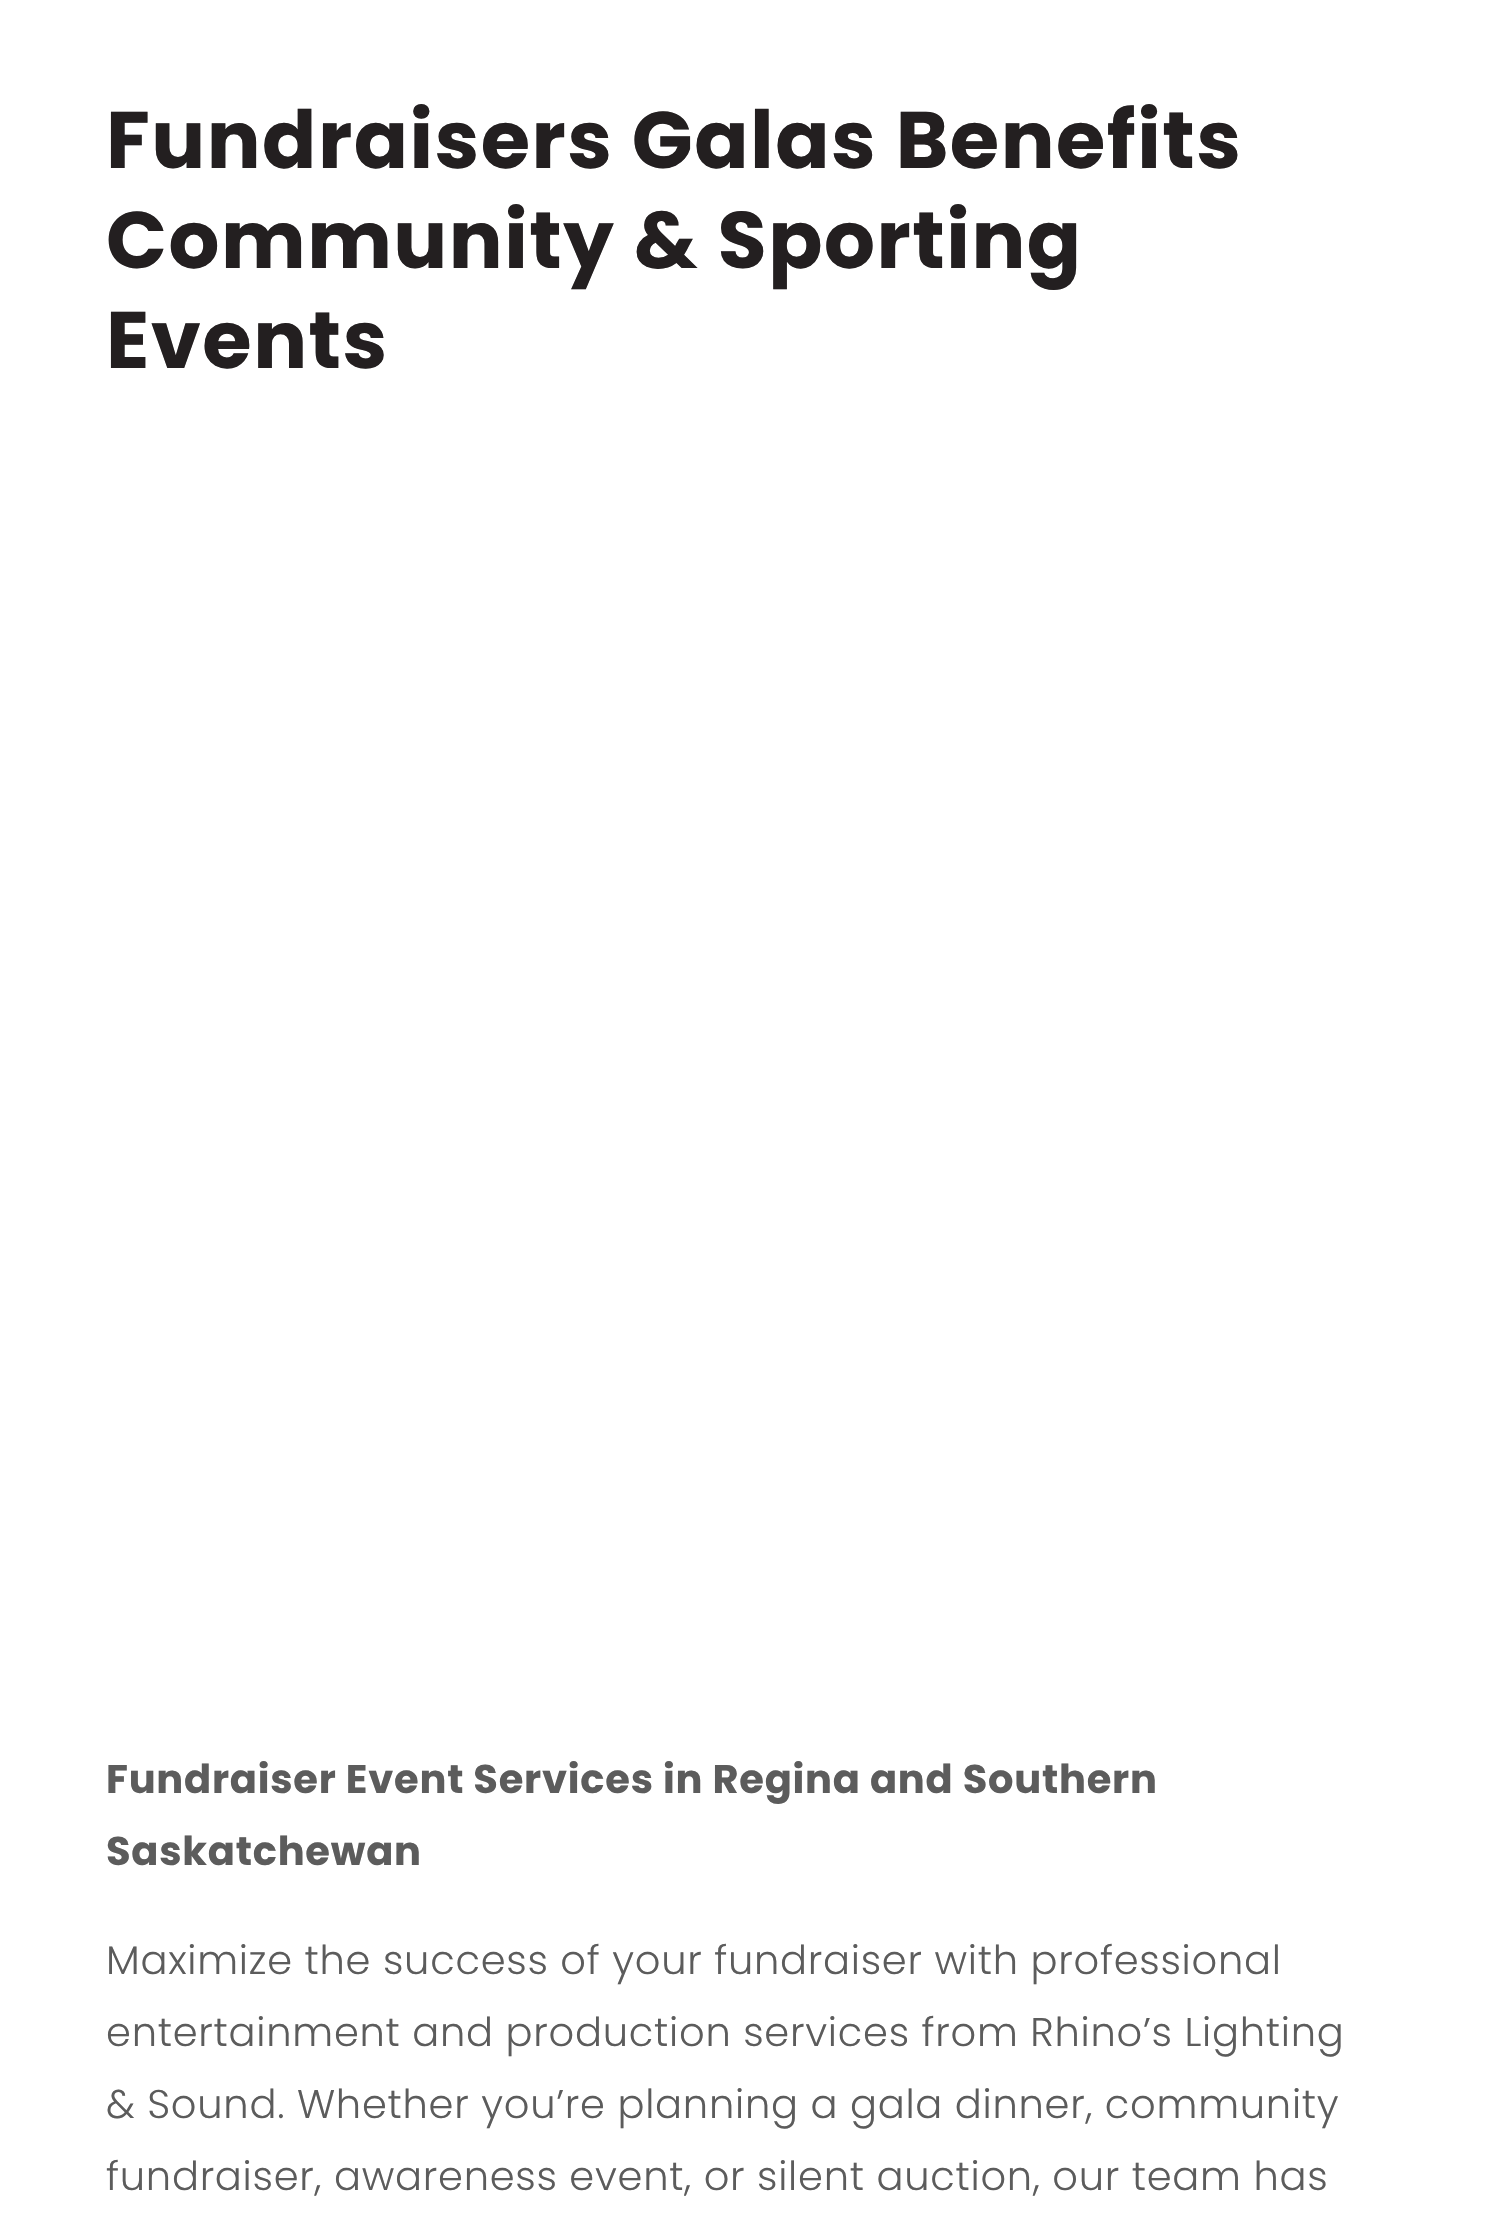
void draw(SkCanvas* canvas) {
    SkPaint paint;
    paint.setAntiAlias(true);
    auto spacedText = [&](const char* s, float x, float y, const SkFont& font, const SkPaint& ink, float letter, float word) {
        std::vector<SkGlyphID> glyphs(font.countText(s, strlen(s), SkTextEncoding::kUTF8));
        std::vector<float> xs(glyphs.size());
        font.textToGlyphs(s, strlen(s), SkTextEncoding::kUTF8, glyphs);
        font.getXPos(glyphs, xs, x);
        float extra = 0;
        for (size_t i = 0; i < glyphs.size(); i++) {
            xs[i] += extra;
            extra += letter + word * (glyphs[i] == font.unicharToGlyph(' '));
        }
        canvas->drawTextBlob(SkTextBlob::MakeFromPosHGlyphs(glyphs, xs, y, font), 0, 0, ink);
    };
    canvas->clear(0xFFFFFFFF);
    SkFont font1(fontMgr->matchFamilyStyle("Poppins", SkFontStyle::Bold()), 80);
    font1.setSubpixel(true);
    paint.setColor(0xFF231F20);
    spacedText("Fundraisers Galas Benefits", 106, 168, font1, paint, 1.5f, 0);
    spacedText("Community & Sporting", 106, 268, font1, paint, 1.5f, 0);
    spacedText("Events", 106, 368, font1, paint, 1.5f, 0);
    SkFont font2(fontMgr->matchFamilyStyle("Poppins", SkFontStyle::Bold()), 40);
    font2.setSubpixel(true);
    paint.setColor(0xFF5C5C5C);
    spacedText("Fundraiser Event Services in Regina and Southern", 106, 1793, font2, paint, 0.75f, 0);
    spacedText("Saskatchewan", 106, 1865, font2, paint, 0.75f, 0);
    SkFont font3(fontMgr->matchFamilyStyle("Poppins", SkFontStyle(300, SkFontStyle::kNormal_Width, SkFontStyle::kUpright_Slant)), 40);
    font3.setSubpixel(true);
    spacedText("Maximize the success of your fundraiser with professional", 106, 1974, font3, paint, 0.75f, 0);
    spacedText("entertainment and production services from Rhino’s Lighting", 106, 2046, font3, paint, 0.75f, 0);
    spacedText("& Sound. Whether you’re planning a gala dinner, community", 106, 2118, font3, paint, 0.75f, 0);
    spacedText("fundraiser, awareness event, or silent auction, our team has", 106, 2190, font3, paint, 0.75f, 0);
}
